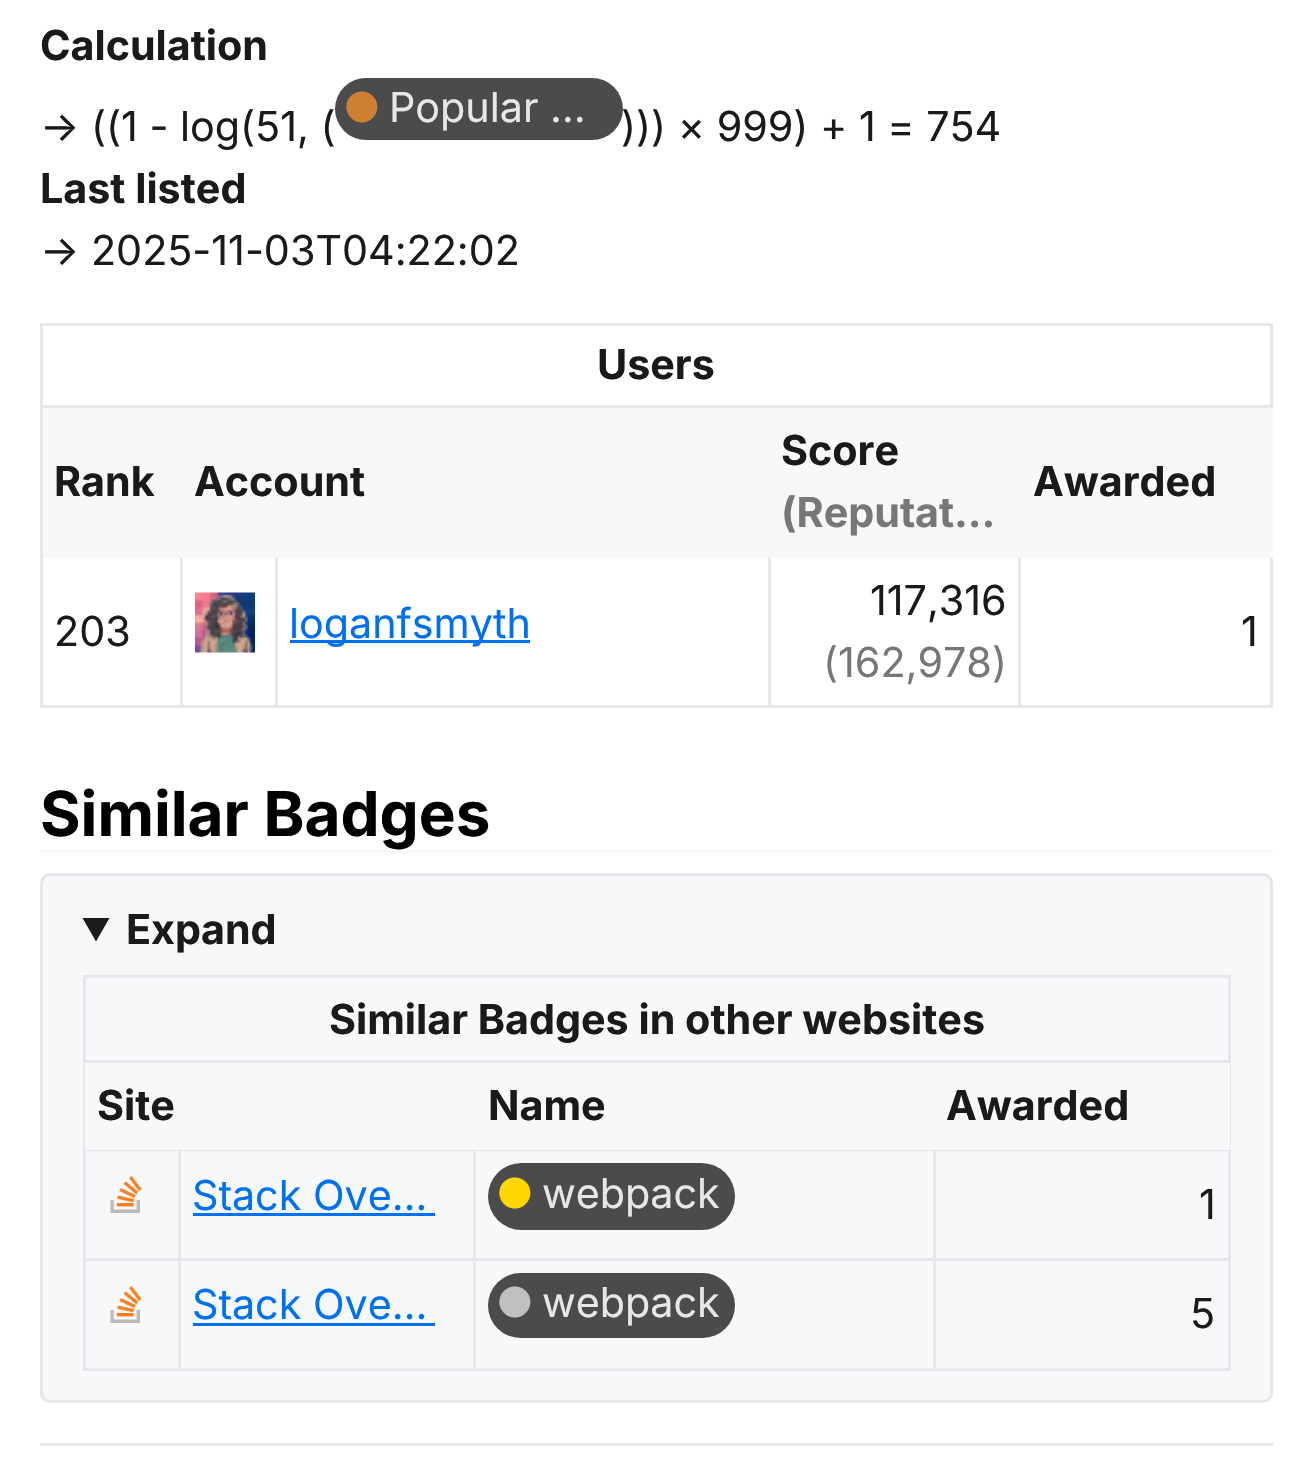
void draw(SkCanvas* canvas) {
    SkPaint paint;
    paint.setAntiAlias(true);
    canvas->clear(0xFFFFFFFF);
    SkFont font1(fontMgr->matchFamilyStyle("Inter", SkFontStyle::Bold()), 41.25f);
    font1.setSubpixel(true);
    paint.setColor(0xFF1A1A1A);
    canvas->drawString("Calculation", 40, 60, font1, paint);
    SkFont font2(fontMgr->matchFamilyStyle("Inter", SkFontStyle::Normal()), 41.25f);
    font2.setSubpixel(true);
    canvas->drawString("→ ((1 - log(51, (", 40, 141, font2, paint);
    paint.setColor(0xFF4B4B4B);
    canvas->drawRoundRect(SkRect::MakeXYWH(335, 78, 288, 62), 31, 31, paint);
    paint.setColor(0xFFCD7F32);
    canvas->drawString("●", 343, 122, font2, paint);
    paint.setColor(0xFFE5E7EB);
    canvas->drawString("Popular …", 389, 122, font2, paint);
    paint.setColor(0xFF1A1A1A);
    canvas->drawString("))) × 999) + 1 = 754", 621, 141, font2, paint);
    canvas->drawString("Last listed", 40, 203, font1, paint);
    canvas->drawString("→ 2025-11-03T04:22:02", 40, 265, font2, paint);
    paint.setColor(0xFFE5E7EB);
    canvas->drawRect(SkRect::MakeXYWH(40, 323, 1233, 3), paint);
    canvas->drawRect(SkRect::MakeXYWH(1270, 323, 3, 82), paint);
    canvas->drawRect(SkRect::MakeXYWH(40, 323, 3, 82), paint);
    paint.setColor(0xFF1A1A1A);
    canvas->drawString("Users", 597, 379, font1, paint);
    paint.setColor(0xFFE5E7EB);
    canvas->drawRect(SkRect::MakeXYWH(40, 405, 1233, 3), paint);
    canvas->drawRect(SkRect::MakeXYWH(1270, 555, 3, 153), paint);
    canvas->drawRect(SkRect::MakeXYWH(1018, 705, 255, 3), paint);
    canvas->drawRect(SkRect::MakeXYWH(1018, 555, 3, 153), paint);
    canvas->drawRect(SkRect::MakeXYWH(768, 705, 252, 3), paint);
    canvas->drawRect(SkRect::MakeXYWH(768, 555, 3, 153), paint);
    canvas->drawRect(SkRect::MakeXYWH(275, 705, 495, 3), paint);
    canvas->drawRect(SkRect::MakeXYWH(275, 555, 3, 153), paint);
    canvas->drawRect(SkRect::MakeXYWH(180, 705, 98, 3), paint);
    canvas->drawRect(SkRect::MakeXYWH(180, 555, 3, 153), paint);
    canvas->drawRect(SkRect::MakeXYWH(40, 705, 143, 3), paint);
    canvas->drawRect(SkRect::MakeXYWH(40, 555, 3, 153), paint);
    canvas->drawRect(SkRect::MakeXYWH(40, 405, 3, 153), paint);
    paint.setColor(0xFFF6F8FA);
    canvas->drawRect(SkRect::MakeXYWH(43, 408, 1230, 150), paint);
    paint.setColor(0xFF1A1A1A);
    canvas->drawString("Rank", 54, 496, font1, paint);
    canvas->drawString("Account", 194, 496, font1, paint);
    canvas->drawString("Score", 781, 465, font1, paint);
    paint.setColor(0xFF777777);
    canvas->drawString("(Reputat…", 781, 527, font1, paint);
    paint.setColor(0xFF1A1A1A);
    canvas->drawString("Awarded", 1033, 496, font1, paint);
    canvas->drawString("203", 54, 646, font2, paint);
    canvas->drawImageRect(SkImages::DeferredFromEncodedData(SkData::MakeFromFileName("img1.png")), SkRect::MakeXYWH(195, 592, 60, 61), SkSamplingOptions());
    paint.setColor(0xFF0070F3);
    canvas->drawRect(SkRect::MakeXYWH(290, 640, 240, 3), paint);
    canvas->drawString("loganfsmyth", 289, 638, font2, paint);
    paint.setColor(0xFF1A1A1A);
    canvas->drawString("117,316", 870, 615, font2, paint);
    paint.setColor(0xFF777777);
    canvas->drawString("(162,978)", 823, 677, font2, paint);
    paint.setColor(0xFF1A1A1A);
    canvas->drawString("1", 1241, 646, font2, paint);
    paint.setColor(0xFFF6F8FA);
    canvas->drawRect(SkRect::MakeXYWH(40, 850, 1233, 3), paint);
    SkFont font3(fontMgr->matchFamilyStyle("Inter", SkFontStyle::Bold()), 62);
    font3.setSubpixel(true);
    paint.setColor(0xFF000000);
    canvas->drawString("Similar Badges", 40, 836, font3, paint);
    paint.setColor(0xFFF6F8FA);
    canvas->drawRoundRect(SkRect::MakeXYWH(41.5f, 874.5f, 1230, 527), 8.5f, 8.5f, paint);
    paint.setStyle(SkPaint::kStroke_Style);
    paint.setStrokeWidth(3);
    paint.setColor(0xFFE5E7EB);
    canvas->drawRoundRect(SkRect::MakeXYWH(41.5f, 874.5f, 1230, 527), 8.5f, 8.5f, paint);
    paint.setStyle(SkPaint::kFill_Style);
    paint.setColor(0xFF1A1A1A);
    canvas->drawPath(SkPathBuilder().moveTo(82.5f, 918).lineTo(109.5f, 918).lineTo(96, 941.5f).close().detach(), paint);
    canvas->drawString("Expand", 126, 944, font1, paint);
    paint.setColor(0xFFE5E7EB);
    canvas->drawRect(SkRect::MakeXYWH(83, 975, 1147, 3), paint);
    canvas->drawRect(SkRect::MakeXYWH(1228, 975, 3, 85), paint);
    canvas->drawRect(SkRect::MakeXYWH(83, 975, 3, 85), paint);
    paint.setColor(0xFF1A1A1A);
    canvas->drawString("Similar Badges in other websites", 329, 1034, font1, paint);
    paint.setColor(0xFFE5E7EB);
    canvas->drawRect(SkRect::MakeXYWH(83, 1060, 1147, 3), paint);
    canvas->drawRect(SkRect::MakeXYWH(933, 1150, 297, 1), paint);
    canvas->drawRect(SkRect::MakeXYWH(933, 1258, 297, 3), paint);
    canvas->drawRect(SkRect::MakeXYWH(1228, 1258, 3, 112), paint);
    canvas->drawRect(SkRect::MakeXYWH(933, 1368, 297, 3), paint);
    canvas->drawRect(SkRect::MakeXYWH(933, 1258, 3, 112), paint);
    canvas->drawRect(SkRect::MakeXYWH(473, 1258, 462, 3), paint);
    canvas->drawRect(SkRect::MakeXYWH(933, 1148, 3, 112), paint);
    canvas->drawRect(SkRect::MakeXYWH(473, 1150, 462, 1), paint);
    canvas->drawRect(SkRect::MakeXYWH(473, 1368, 462, 3), paint);
    canvas->drawRect(SkRect::MakeXYWH(473, 1258, 3, 112), paint);
    canvas->drawRect(SkRect::MakeXYWH(178, 1258, 297, 3), paint);
    canvas->drawRect(SkRect::MakeXYWH(473, 1148, 3, 112), paint);
    canvas->drawRect(SkRect::MakeXYWH(178, 1150, 297, 1), paint);
    canvas->drawRect(SkRect::MakeXYWH(178, 1368, 297, 3), paint);
    canvas->drawRect(SkRect::MakeXYWH(178, 1258, 3, 112), paint);
    canvas->drawRect(SkRect::MakeXYWH(83, 1258, 97, 3), paint);
    canvas->drawRect(SkRect::MakeXYWH(178, 1148, 3, 112), paint);
    canvas->drawRect(SkRect::MakeXYWH(83, 1150, 97, 1), paint);
    canvas->drawRect(SkRect::MakeXYWH(83, 1368, 97, 3), paint);
    canvas->drawRect(SkRect::MakeXYWH(83, 1258, 3, 112), paint);
    canvas->drawRect(SkRect::MakeXYWH(83, 1148, 3, 112), paint);
    canvas->drawRect(SkRect::MakeXYWH(83, 1060, 3, 90), paint);
    paint.setColor(0xFFF6F8FA);
    canvas->drawRect(SkRect::MakeXYWH(85, 1063, 390, 87), paint);
    paint.setColor(0xFF1A1A1A);
    canvas->drawString("Site", 97, 1120, font1, paint);
    paint.setColor(0xFFF6F8FA);
    canvas->drawRect(SkRect::MakeXYWH(475, 1148, 1, 2), paint);
    paint.setColor(0xFF1A1A1A);
    canvas->drawString("Name", 488, 1120, font1, paint);
    paint.setColor(0xFFE5E7EB);
    canvas->drawRect(SkRect::MakeXYWH(1228, 1148, 3, 112), paint);
    canvas->drawRect(SkRect::MakeXYWH(1228, 1060, 3, 90), paint);
    paint.setColor(0xFFF6F8FA);
    canvas->drawRect(SkRect::MakeXYWH(933, 1063, 297, 87), paint);
    paint.setColor(0xFF1A1A1A);
    canvas->drawString("Awarded", 946, 1120, font1, paint);
    canvas->drawImageRect(SkImages::DeferredFromEncodedData(SkData::MakeFromFileName("img2.png")), SkRect::MakeXYWH(110, 1175, 32, 38), SkSamplingOptions());
    paint.setColor(0xFF0070F3);
    canvas->drawString("Stack Ove…", 192, 1210, font2, paint);
    canvas->drawRect(SkRect::MakeXYWH(193, 1213, 242, 3), paint);
    paint.setColor(0xFF4B4B4B);
    canvas->drawRoundRect(SkRect::MakeXYWH(488, 1163, 247, 67), 33.5f, 33.5f, paint);
    paint.setColor(0xFFFFD700);
    canvas->drawString("●", 496, 1208, font2, paint);
    paint.setColor(0xFFE5E7EB);
    canvas->drawString("webpack", 542, 1208, font2, paint);
    paint.setColor(0xFF1A1A1A);
    canvas->drawString("1", 1199, 1219, font2, paint);
    canvas->drawImageRect(SkImages::DeferredFromEncodedData(SkData::MakeFromFileName("img3.png")), SkRect::MakeXYWH(110, 1285, 32, 38), SkSamplingOptions());
    paint.setColor(0xFF0070F3);
    canvas->drawString("Stack Ove…", 192, 1319, font2, paint);
    canvas->drawRect(SkRect::MakeXYWH(193, 1323, 242, 3), paint);
    paint.setColor(0xFF4B4B4B);
    canvas->drawRoundRect(SkRect::MakeXYWH(488, 1273, 247, 65), 32.5f, 32.5f, paint);
    paint.setColor(0xFFC0C0C0);
    canvas->drawString("●", 496, 1317, font2, paint);
    paint.setColor(0xFFE5E7EB);
    canvas->drawString("webpack", 542, 1317, font2, paint);
    paint.setColor(0xFF1A1A1A);
    canvas->drawString("5", 1190, 1328, font2, paint);
    paint.setColor(0xFFE5E7EB);
    canvas->drawRect(SkRect::MakeXYWH(40, 1443, 1233, 3), paint);
}
